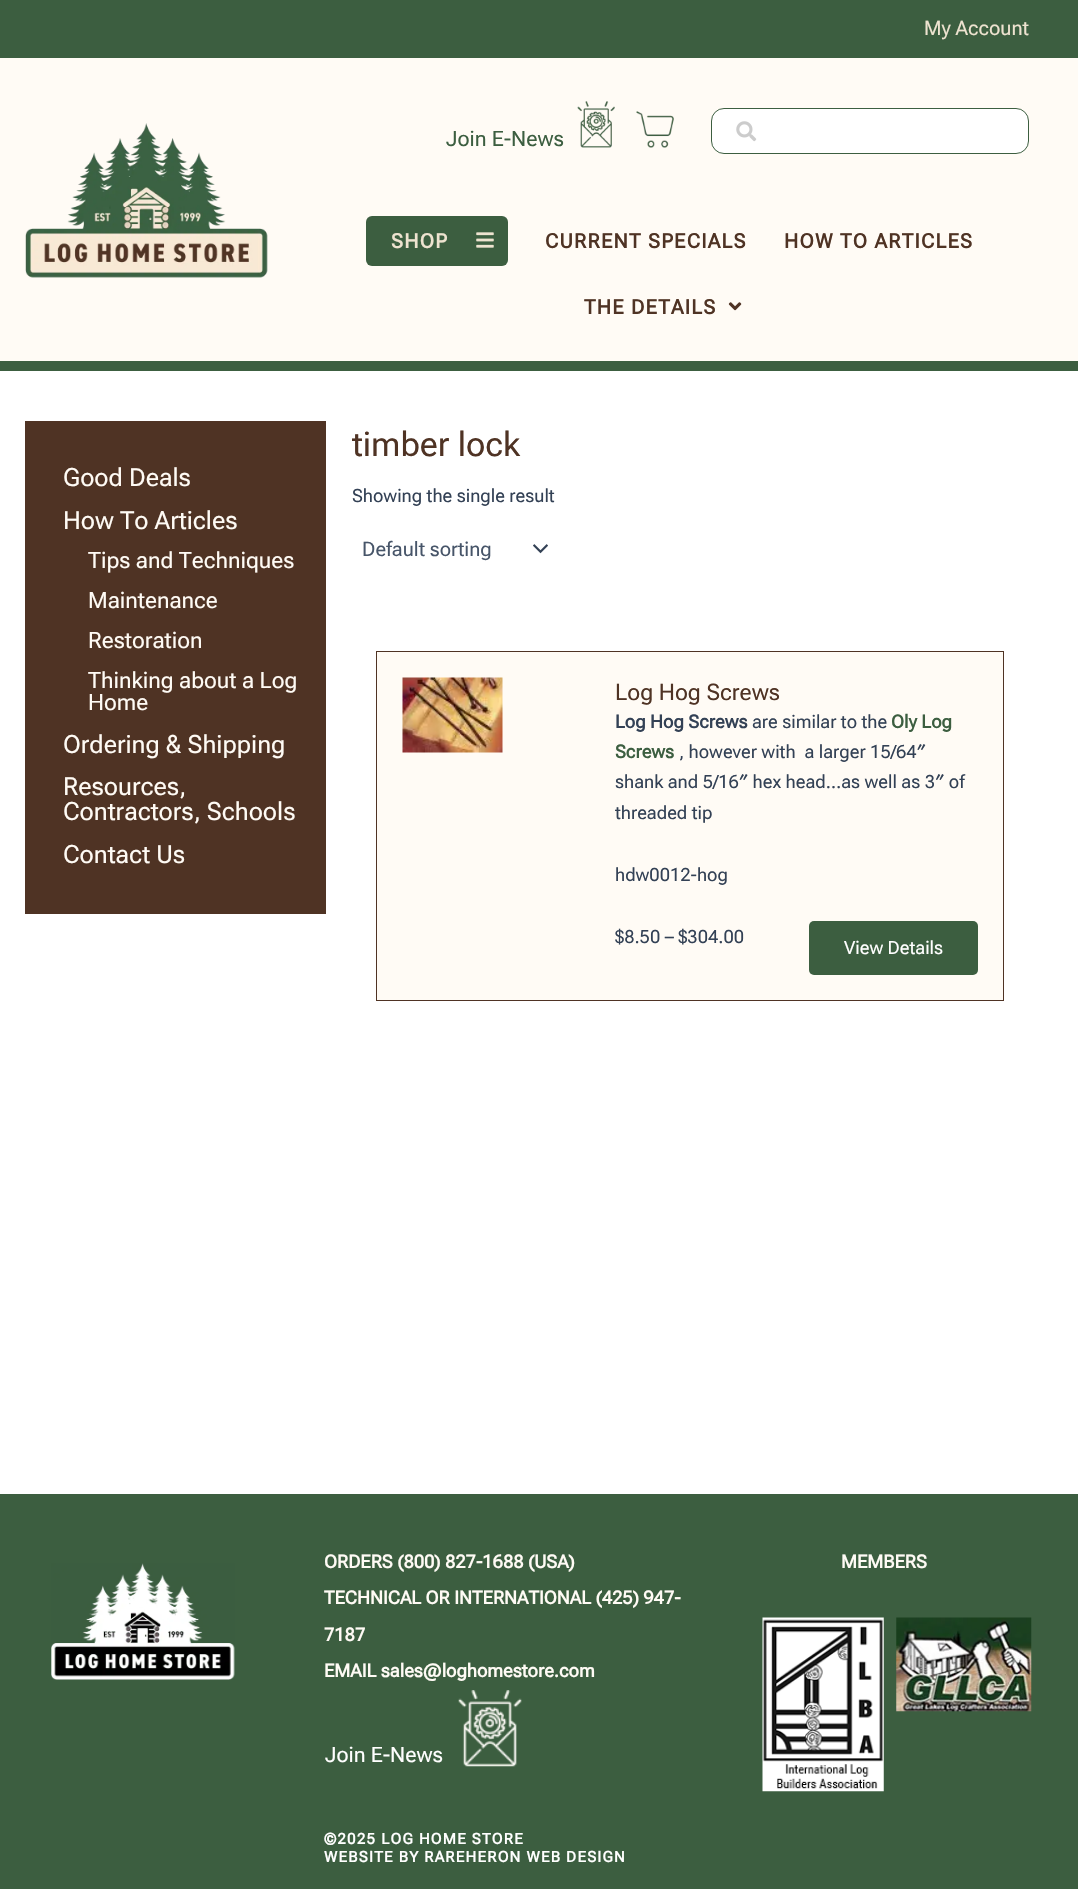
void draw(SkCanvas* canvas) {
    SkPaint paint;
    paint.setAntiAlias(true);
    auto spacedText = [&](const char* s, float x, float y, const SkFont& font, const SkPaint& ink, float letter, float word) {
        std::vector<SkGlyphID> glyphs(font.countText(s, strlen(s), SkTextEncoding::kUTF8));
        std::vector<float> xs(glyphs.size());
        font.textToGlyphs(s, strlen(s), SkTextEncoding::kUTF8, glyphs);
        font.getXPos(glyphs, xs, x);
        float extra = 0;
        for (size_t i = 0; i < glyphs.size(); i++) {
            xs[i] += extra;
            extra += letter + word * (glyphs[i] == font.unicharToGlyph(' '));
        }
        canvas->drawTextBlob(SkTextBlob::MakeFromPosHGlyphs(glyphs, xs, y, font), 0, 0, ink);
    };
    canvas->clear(0xFFFFFFFF);
    paint.setColor(0xFF3C5E40);
    canvas->drawRect(SkRect::MakeXYWH(0, 0, 1078, 58), paint);
    SkFont font1(fontMgr->matchFamilyStyle("Roboto Flex", SkFontStyle::Normal()), 20);
    font1.setSubpixel(true);
    paint.setColor(0xFFEEE3D0);
    canvas->drawString("My Account", 924, 35, font1, paint);
    paint.setColor(0xFFFFFBF5);
    canvas->drawRect(SkRect::MakeXYWH(0, 58, 1078, 303), paint);
    paint.setColor(0xFF3C5E40);
    canvas->drawRect(SkRect::MakeXYWH(0, 361, 1078, 10), paint);
    canvas->drawImageRect(SkImages::DeferredFromEncodedData(SkData::MakeFromFileName("img1.png")), SkRect::MakeXYWH(25, 123, 243, 155), SkSamplingOptions());
    SkFont font2(fontMgr->matchFamilyStyle("Roboto Flex", SkFontStyle::Normal()), 21.25f);
    font2.setSubpixel(true);
    canvas->drawString("Join E-News", 446, 146, font2, paint);
    canvas->drawImageRect(SkImages::DeferredFromEncodedData(SkData::MakeFromFileName("img2.png")), SkRect::MakeXYWH(577, 101, 38, 47), SkSamplingOptions());
    canvas->drawImageRect(SkImages::DeferredFromEncodedData(SkData::MakeFromFileName("img3.png")), SkRect::MakeXYWH(636, 111, 38, 37), SkSamplingOptions());
    paint.setColor(0xFFFFFFFF);
    canvas->drawRoundRect(SkRect::MakeXYWH(711.5f, 108.5f, 317, 45), 12.5f, 12.5f, paint);
    paint.setStyle(SkPaint::kStroke_Style);
    paint.setStrokeWidth(1);
    paint.setColor(0xFF3C5E40);
    canvas->drawRoundRect(SkRect::MakeXYWH(711.5f, 108.5f, 317, 45), 12.5f, 12.5f, paint);
    canvas->drawImageRect(SkImages::DeferredFromEncodedData(SkData::MakeFromFileName("img4.png")), SkRect::MakeXYWH(736, 121, 21, 21), SkSamplingOptions());
    paint.setStyle(SkPaint::kFill_Style);
    canvas->drawRoundRect(SkRect::MakeXYWH(366, 216, 142, 50), 6, 6, paint);
    SkFont font3(fontMgr->matchFamilyStyle("Roboto Flex", SkFontStyle::Bold()), 20);
    font3.setSubpixel(true);
    paint.setColor(0xFFEEE3D0);
    spacedText("SHOP", 391, 248, font3, paint, 1.25f, 0);
    canvas->drawImageRect(SkImages::DeferredFromEncodedData(SkData::MakeFromFileName("img5.png")), SkRect::MakeXYWH(476, 232, 18, 16), SkSamplingOptions());
    paint.setColor(0xFF4F3324);
    spacedText("CURRENT SPECIALS", 545, 248, font3, paint, 1.25f, 0);
    spacedText("HOW TO ARTICLES", 784, 248, font3, paint, 1.25f, 0);
    spacedText("THE DETAILS", 584, 314, font3, paint, 1.25f, 0);
    canvas->drawImageRect(SkImages::DeferredFromEncodedData(SkData::MakeFromFileName("img6.png")), SkRect::MakeXYWH(728, 302, 14, 9), SkSamplingOptions());
    canvas->drawRect(SkRect::MakeXYWH(25, 421, 301, 493), paint);
    SkFont font4(fontMgr->matchFamilyStyle("Roboto Flex", SkFontStyle::Normal()), 25);
    font4.setSubpixel(true);
    paint.setColor(0xFFFFFBF5);
    canvas->drawString("Good Deals", 63, 486, font4, paint);
    canvas->drawString("How To Articles", 63, 529, font4, paint);
    SkFont font5(fontMgr->matchFamilyStyle("Roboto Flex", SkFontStyle::Normal()), 22.5f);
    font5.setSubpixel(true);
    canvas->drawString("Tips and Techniques", 88, 568, font5, paint);
    canvas->drawString("Maintenance", 88, 608, font5, paint);
    canvas->drawString("Restoration", 88, 648, font5, paint);
    canvas->drawString("Thinking about a Log", 88, 688, font5, paint);
    canvas->drawString("Home", 88, 710, font5, paint);
    canvas->drawString("Ordering & Shipping", 63, 753, font4, paint);
    canvas->drawString("Resources,", 63, 795, font4, paint);
    canvas->drawString("Contractors, Schools", 63, 820, font4, paint);
    canvas->drawString("Contact Us", 63, 863, font4, paint);
    SkFont font6(fontMgr->matchFamilyStyle("Roboto Flex", SkFontStyle::Normal()), 34);
    font6.setSubpixel(true);
    paint.setColor(0xFF4F3324);
    canvas->drawString("timber lock", 352, 456, font6, paint);
    SkFont font7(fontMgr->matchFamilyStyle("Roboto Flex", SkFontStyle::Normal()), 18.25f);
    font7.setSubpixel(true);
    paint.setColor(0xFF334155);
    canvas->drawString("Showing the single result", 352, 502, font7, paint);
    canvas->drawImageRect(SkImages::DeferredFromEncodedData(SkData::MakeFromFileName("img7.png")), SkRect::MakeXYWH(533, 544, 15, 10), SkSamplingOptions());
    paint.setColor(0xFF475569);
    canvas->drawString("Default sorting", 362, 556, font1, paint);
    paint.setColor(0xFFFFFBF5);
    canvas->drawRect(SkRect::MakeXYWH(376.5f, 651.5f, 627, 349), paint);
    paint.setStyle(SkPaint::kStroke_Style);
    paint.setColor(0xFF4F3324);
    canvas->drawRect(SkRect::MakeXYWH(376.5f, 651.5f, 627, 349), paint);
    canvas->drawImageRect(SkImages::DeferredFromEncodedData(SkData::MakeFromFileName("img8.png")), SkRect::MakeXYWH(402, 677, 101, 76), SkSamplingOptions());
    SkFont font8(fontMgr->matchFamilyStyle("Roboto Flex", SkFontStyle::Normal()), 22.75f);
    font8.setSubpixel(true);
    paint.setStyle(SkPaint::kFill_Style);
    canvas->drawString("Log Hog Screws", 615, 700, font8, paint);
    SkFont font9(fontMgr->matchFamilyStyle("Roboto Flex", SkFontStyle::Bold()), 18.25f);
    font9.setSubpixel(true);
    paint.setColor(0xFF334155);
    canvas->drawString("Log Hog Screws", 615, 728, font9, paint);
    canvas->drawString("are similar to the", 752, 728, font7, paint);
    paint.setColor(0xFF3C5E40);
    canvas->drawString("Oly Log", 891, 728, font9, paint);
    canvas->drawString("Screws", 615, 758, font9, paint);
    paint.setColor(0xFF334155);
    canvas->drawString(", however with  a larger 15/64″", 679, 758, font7, paint);
    canvas->drawString("shank and 5/16″ hex head…as well as 3″ of", 615, 788, font7, paint);
    canvas->drawString("threaded tip", 615, 819, font7, paint);
    canvas->drawString("hdw0012-hog", 615, 881, font7, paint);
    canvas->drawString("$8.50 – $304.00", 615, 943, font7, paint);
    paint.setColor(0xFF3C5E40);
    canvas->drawRoundRect(SkRect::MakeXYWH(809, 921, 169, 54), 5, 5, paint);
    paint.setColor(0xFFFFFFFF);
    canvas->drawString("View Details", 844, 954, font7, paint);
    paint.setColor(0xFF3C5E40);
    canvas->drawRect(SkRect::MakeXYWH(0, 1494, 1078, 395), paint);
    paint.setColor(0xFFFFFBF5);
    canvas->drawString("ORDERS (800) 827-1688 (USA)", 324, 1568, font9, paint);
    canvas->drawString("TECHNICAL OR INTERNATIONAL (425) 947-", 324, 1604, font9, paint);
    canvas->drawString("7187", 324, 1641, font9, paint);
    canvas->drawString("EMAIL sales@loghomestore.com", 324, 1677, font9, paint);
    paint.setColor(0xFFFFFFFF);
    canvas->drawString("Join E-News", 325, 1762, font2, paint);
    canvas->drawImageRect(SkImages::DeferredFromEncodedData(SkData::MakeFromFileName("img9.png")), SkRect::MakeXYWH(458, 1690, 64, 77), SkSamplingOptions());
    SkFont font10(fontMgr->matchFamilyStyle("Roboto Flex", SkFontStyle::Bold()), 15);
    font10.setSubpixel(true);
    spacedText("©2025 LOG HOME STORE", 324, 1844, font10, paint, 1.25f, 0);
    spacedText("WEBSITE BY RAREHERON WEB DESIGN", 324, 1862, font10, paint, 1.25f, 0);
    paint.setColor(0xFFFFFBF5);
    canvas->drawString("MEMBERS", 841, 1568, font9, paint);
    canvas->drawImageRect(SkImages::DeferredFromEncodedData(SkData::MakeFromFileName("img10.png")), SkRect::MakeXYWH(762, 1617, 122, 175), SkSamplingOptions());
    canvas->drawImageRect(SkImages::DeferredFromEncodedData(SkData::MakeFromFileName("img11.png")), SkRect::MakeXYWH(896, 1617, 136, 95), SkSamplingOptions());
    canvas->drawImageRect(SkImages::DeferredFromEncodedData(SkData::MakeFromFileName("img12.png")), SkRect::MakeXYWH(51, 1563, 184, 117), SkSamplingOptions());
}
